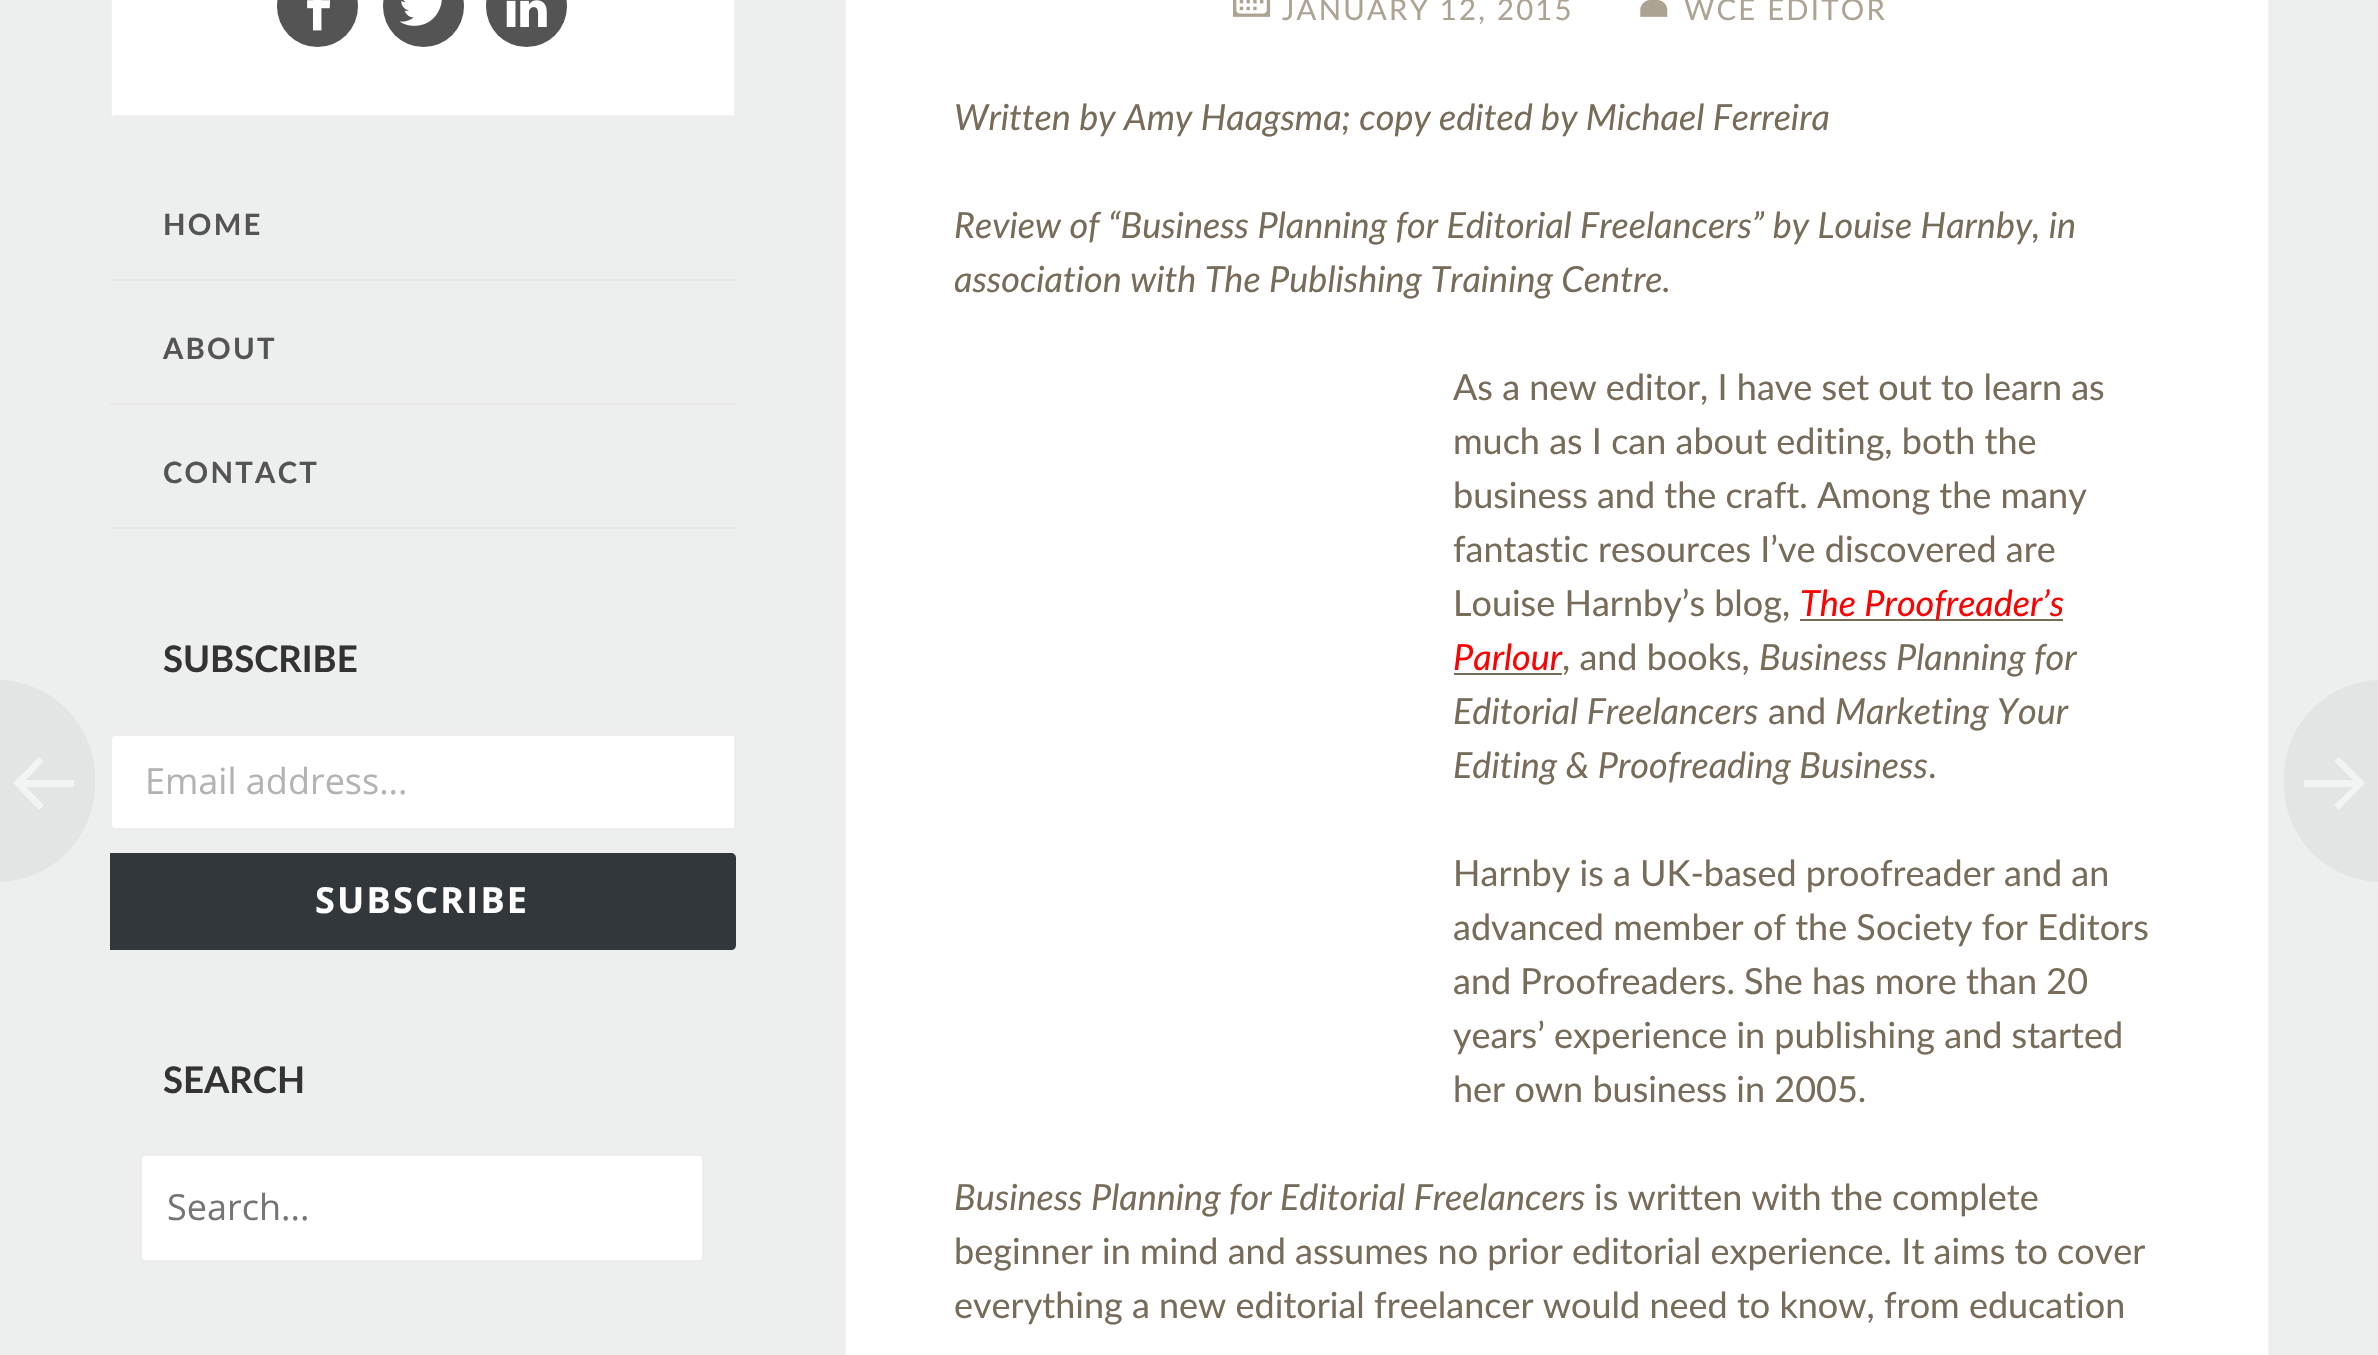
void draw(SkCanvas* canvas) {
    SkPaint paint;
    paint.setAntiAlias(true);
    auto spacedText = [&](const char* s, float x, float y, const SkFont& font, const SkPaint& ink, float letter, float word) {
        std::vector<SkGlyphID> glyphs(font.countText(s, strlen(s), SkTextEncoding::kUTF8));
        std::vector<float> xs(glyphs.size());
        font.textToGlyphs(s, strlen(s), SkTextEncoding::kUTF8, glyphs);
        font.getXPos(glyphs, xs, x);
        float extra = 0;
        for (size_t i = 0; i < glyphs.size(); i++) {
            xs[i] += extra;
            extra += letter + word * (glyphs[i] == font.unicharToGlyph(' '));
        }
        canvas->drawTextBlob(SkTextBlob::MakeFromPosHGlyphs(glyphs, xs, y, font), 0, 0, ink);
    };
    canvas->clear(0xFFEDEFEF);
    paint.setColor(0xFFFFFFFF);
    canvas->drawPath(SkPathBuilder().moveTo(110, -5).lineTo(736, -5).lineTo(736, 112).cubicTo(736, 115, 734, 117, 731, 117).lineTo(115, 117).cubicTo(112, 117, 110, 115, 110, 112).close().detach(), paint);
    paint.setColor(0x80E4E1DC);
    canvas->drawRect(SkRect::MakeXYWH(734, 0, 2, 115), paint);
    canvas->drawRect(SkRect::MakeXYWH(113, 115, 621, 2), paint);
    canvas->drawRect(SkRect::MakeXYWH(110, 0, 2, 115), paint);
    paint.setColor(0xFF545454);
    canvas->drawCircle(317.5f, 6.5f, 40.5f, paint);
    canvas->drawImageRect(SkImages::DeferredFromEncodedData(SkData::MakeFromFileName("img1.png")), SkRect::MakeXYWH(307, 0, 24, 31), SkSamplingOptions());
    canvas->drawCircle(423.5f, 6.5f, 40.5f, paint);
    canvas->drawImageRect(SkImages::DeferredFromEncodedData(SkData::MakeFromFileName("img2.png")), SkRect::MakeXYWH(399, 0, 43, 26), SkSamplingOptions());
    canvas->drawCircle(526.5f, 6.5f, 40.5f, paint);
    canvas->drawImageRect(SkImages::DeferredFromEncodedData(SkData::MakeFromFileName("img3.png")), SkRect::MakeXYWH(506, 0, 41, 27), SkSamplingOptions());
    paint.setColor(0xFFE9E8E6);
    canvas->drawRect(SkRect::MakeXYWH(110, 279, 626, 2), paint);
    SkFont font1(fontMgr->matchFamilyStyle("Lato", SkFontStyle::Bold()), 29.25f);
    font1.setSubpixel(true);
    paint.setColor(0xFF545454);
    spacedText("HOME", 163, 235, font1, paint, 2.25f, 0);
    paint.setColor(0xFFE9E8E6);
    canvas->drawRect(SkRect::MakeXYWH(110, 403, 626, 2), paint);
    paint.setColor(0xFF545454);
    spacedText("ABOUT", 163, 359, font1, paint, 2.25f, 0);
    paint.setColor(0xFFE9E8E6);
    canvas->drawRect(SkRect::MakeXYWH(110, 527, 626, 2), paint);
    paint.setColor(0xFF545454);
    spacedText("CONTACT", 163, 483, font1, paint, 2.25f, 0);
    SkFont font2(fontMgr->matchFamilyStyle("Lato", SkFontStyle::Bold()), 36.5f);
    font2.setSubpixel(true);
    paint.setColor(0xFF333333);
    canvas->drawString("SUBSCRIBE", 163, 672, font2, paint);
    paint.setColor(0xFFFFFFFF);
    canvas->drawPath(SkPathBuilder().moveTo(115, 735).lineTo(735, 735).lineTo(735, 829).lineTo(115, 829).cubicTo(113, 829, 111, 827, 111, 825).lineTo(111, 739).cubicTo(111, 737, 113, 735, 115, 735).close().detach(), paint);
    paint.setStyle(SkPaint::kStroke_Style);
    paint.setStrokeWidth(2);
    paint.setColor(0xFFEFEDEA);
    canvas->drawPath(SkPathBuilder().moveTo(115, 735).lineTo(735, 735).lineTo(735, 829).lineTo(115, 829).cubicTo(113, 829, 111, 827, 111, 825).lineTo(111, 739).cubicTo(111, 737, 113, 735, 115, 735).close().detach(), paint);
    SkFont font3(fontMgr->matchFamilyStyle("Open Sans", SkFontStyle::Normal()), 36);
    font3.setSubpixel(true);
    paint.setStyle(SkPaint::kFill_Style);
    paint.setColor(0xFFB3B3B3);
    canvas->drawString("Email address...", 145, 794, font3, paint);
    paint.setColor(0xFF32373C);
    canvas->drawPath(SkPathBuilder().moveTo(110, 853).lineTo(731, 853).cubicTo(734, 853, 736, 855, 736, 858).lineTo(736, 945).cubicTo(736, 948, 734, 950, 731, 950).lineTo(110, 950).close().detach(), paint);
    SkFont font4(fontMgr->matchFamilyStyle("Open Sans", SkFontStyle::Bold()), 36);
    font4.setSubpixel(true);
    paint.setColor(0xFFFFFFFF);
    spacedText("SUBSCRIBE", 315, 913, font4, paint, 2.25f, 0);
    paint.setColor(0xFF333333);
    canvas->drawString("SEARCH", 163, 1093, font2, paint);
    paint.setColor(0xFFFFFFFF);
    canvas->drawRoundRect(SkRect::MakeXYWH(141, 1155, 562, 106), 4, 4, paint);
    paint.setStyle(SkPaint::kStroke_Style);
    paint.setColor(0xFFEFEDEA);
    canvas->drawRoundRect(SkRect::MakeXYWH(141, 1155, 562, 106), 4, 4, paint);
    paint.setStyle(SkPaint::kFill_Style);
    paint.setColor(0xFF757575);
    canvas->drawString("Search...", 167, 1220, font3, paint);
    paint.setColor(0xFFFFFFFF);
    canvas->drawRect(SkRect::MakeXYWH(845, -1, 1424, 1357), paint);
    paint.setStyle(SkPaint::kStroke_Style);
    paint.setColor(0xFFF2F0EE);
    canvas->drawRect(SkRect::MakeXYWH(845, -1, 1424, 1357), paint);
    canvas->drawImageRect(SkImages::DeferredFromEncodedData(SkData::MakeFromFileName("img4.png")), SkRect::MakeXYWH(1233, 0, 38, 17), SkSamplingOptions());
    SkFont font5(fontMgr->matchFamilyStyle("Lato", SkFontStyle::Normal()), 29.25f);
    font5.setSubpixel(true);
    paint.setStyle(SkPaint::kFill_Style);
    paint.setColor(0xFFADA393);
    spacedText("JANUARY 12, 2015", 1282, 20, font5, paint, 2.25f, 0);
    canvas->drawImageRect(SkImages::DeferredFromEncodedData(SkData::MakeFromFileName("img5.png")), SkRect::MakeXYWH(1640, 0, 28, 17), SkSamplingOptions());
    spacedText("WCE EDITOR", 1684, 20, font5, paint, 2.25f, 0);
    SkFont font6(fontMgr->matchFamilyStyle("Lato", SkFontStyle::Italic()), 36);
    font6.setSubpixel(true);
    paint.setColor(0xFF776B59);
    canvas->drawString("Written by Amy Haagsma; copy edited by Michael Ferreira", 954, 130, font6, paint);
    canvas->drawString("Review of “Business Planning for Editorial Freelancers” by Louise Harnby, in", 954, 238, font6, paint);
    canvas->drawString("association with The Publishing Training Centre.", 954, 292, font6, paint);
    SkFont font7(fontMgr->matchFamilyStyle("Lato", SkFontStyle::Normal()), 36);
    font7.setSubpixel(true);
    canvas->drawString("As a new editor, I have set out to learn as", 1453, 400, font7, paint);
    canvas->drawString("much as I can about editing, both the", 1453, 454, font7, paint);
    canvas->drawString("business and the craft. Among the many", 1453, 508, font7, paint);
    canvas->drawString("fantastic resources I’ve discovered are", 1453, 562, font7, paint);
    canvas->drawString("Louise Harnby’s blog,", 1453, 616, font7, paint);
    canvas->drawRect(SkRect::MakeXYWH(1800, 619, 263, 2), paint);
    paint.setColor(0xFFFF0000);
    canvas->drawString("The Proofreader’s", 1800, 616, font6, paint);
    canvas->drawString("Parlour", 1453, 670, font6, paint);
    paint.setColor(0xFF776B59);
    canvas->drawRect(SkRect::MakeXYWH(1454, 673, 108, 2), paint);
    canvas->drawString(", and books,", 1562, 670, font7, paint);
    canvas->drawString("Business Planning for", 1759, 670, font6, paint);
    canvas->drawString("Editorial Freelancers", 1453, 724, font6, paint);
    canvas->drawString("and", 1768, 724, font7, paint);
    canvas->drawString("Marketing Your", 1835, 724, font6, paint);
    canvas->drawString("Editing & Proofreading Business", 1453, 778, font6, paint);
    canvas->drawString(".", 1928, 778, font7, paint);
    canvas->drawString("Harnby is a UK-based proofreader and an", 1453, 886, font7, paint);
    canvas->drawString("advanced member of the Society for Editors", 1453, 940, font7, paint);
    canvas->drawString("and Proofreaders. She has more than 20", 1453, 994, font7, paint);
    canvas->drawString("years’ experience in publishing and started", 1453, 1048, font7, paint);
    canvas->drawString("her own business in 2005.", 1453, 1102, font7, paint);
    canvas->drawString("Business Planning for Editorial Freelancers", 954, 1210, font6, paint);
    canvas->drawString("is written with the complete", 1594, 1210, font7, paint);
    canvas->drawString("beginner in mind and assumes no prior editorial experience. It aims to cover", 954, 1264, font7, paint);
    canvas->drawString("everything a new editorial freelancer would need to know, from education", 954, 1318, font7, paint);
    paint.setColor(0xFFE3E4E4);
    canvas->drawRoundRect(SkRect::MakeXYWH(-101, 680, 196, 202), 101, 101, paint);
    paint.setColor(0xFFF2F3F3);
    canvas->drawPath(SkPathBuilder().moveTo(39, 757).lineTo(44, 761).lineTo(26, 780).lineTo(74, 780).lineTo(74, 787).lineTo(26, 787).lineTo(44, 805).lineTo(39, 810).lineTo(13, 783).close().detach(), paint);
    paint.setColor(0xFFE3E4E4);
    canvas->drawRoundRect(SkRect::MakeXYWH(2284, 680, 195, 202), 101, 101, paint);
    paint.setColor(0xFFF2F3F3);
    canvas->drawPath(SkPathBuilder().moveTo(2339, 757).lineTo(2365, 783).lineTo(2339, 810).lineTo(2334, 805).lineTo(2353, 787).lineTo(2304, 787).lineTo(2304, 780).lineTo(2353, 780).lineTo(2334, 761).close().detach(), paint);
}
